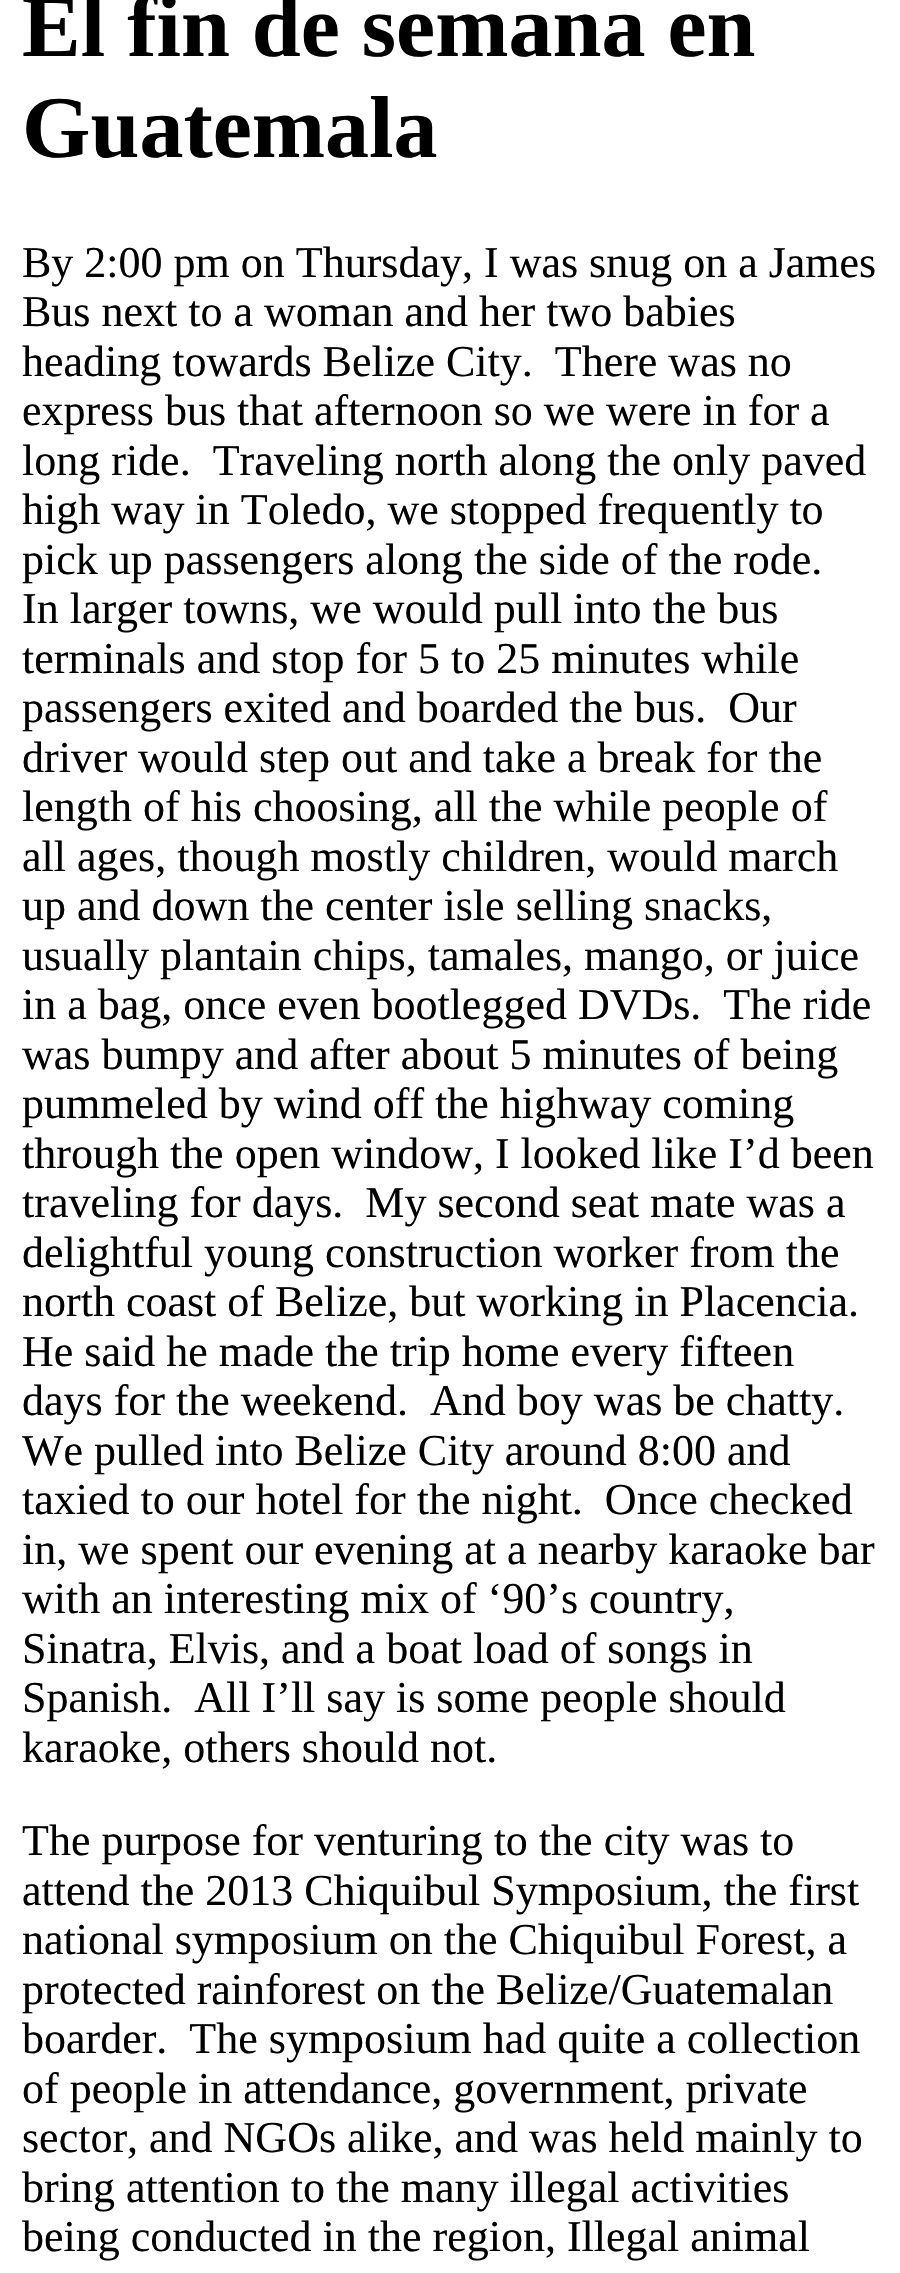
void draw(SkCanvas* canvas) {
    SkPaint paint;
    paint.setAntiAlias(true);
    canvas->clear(0xFFFFFFFF);
    SkFont font1(fontMgr->matchFamilyStyle("Liberation Serif", SkFontStyle::Bold()), 88);
    font1.setSubpixel(true);
    paint.setColor(0xFF000000);
    canvas->drawString("El fin de semana en", 22, 56, font1, paint);
    canvas->drawString("Guatemala", 22, 157, font1, paint);
    SkFont font2(fontMgr->matchFamilyStyle("Liberation Serif", SkFontStyle::Normal()), 44);
    font2.setSubpixel(true);
    canvas->drawString("By 2:00 pm on Thursday, I was snug on a James", 22, 277, font2, paint);
    canvas->drawString("Bus next to a woman and her two babies", 22, 326, font2, paint);
    canvas->drawString("heading towards Belize City.  There was no", 22, 376, font2, paint);
    canvas->drawString("express bus that afternoon so we were in for a", 22, 425, font2, paint);
    canvas->drawString("long ride.  Traveling north along the only paved", 22, 475, font2, paint);
    canvas->drawString("high way in Toledo, we stopped frequently to", 22, 524, font2, paint);
    canvas->drawString("pick up passengers along the side of the rode.", 22, 574, font2, paint);
    canvas->drawString("In larger towns, we would pull into the bus", 22, 623, font2, paint);
    canvas->drawString("terminals and stop for 5 to 25 minutes while", 22, 673, font2, paint);
    canvas->drawString("passengers exited and boarded the bus.  Our", 22, 722, font2, paint);
    canvas->drawString("driver would step out and take a break for the", 22, 772, font2, paint);
    canvas->drawString("length of his choosing, all the while people of", 22, 821, font2, paint);
    canvas->drawString("all ages, though mostly children, would march", 22, 871, font2, paint);
    canvas->drawString("up and down the center isle selling snacks,", 22, 920, font2, paint);
    canvas->drawString("usually plantain chips, tamales, mango, or juice", 22, 970, font2, paint);
    canvas->drawString("in a bag, once even bootlegged DVDs.  The ride", 22, 1019, font2, paint);
    canvas->drawString("was bumpy and after about 5 minutes of being", 22, 1069, font2, paint);
    canvas->drawString("pummeled by wind off the highway coming", 22, 1118, font2, paint);
    canvas->drawString("through the open window, I looked like I’d been", 22, 1168, font2, paint);
    canvas->drawString("traveling for days.  My second seat mate was a", 22, 1217, font2, paint);
    canvas->drawString("delightful young construction worker from the", 22, 1267, font2, paint);
    canvas->drawString("north coast of Belize, but working in Placencia.", 22, 1316, font2, paint);
    canvas->drawString("He said he made the trip home every fifteen", 22, 1366, font2, paint);
    canvas->drawString("days for the weekend.  And boy was be chatty.", 22, 1415, font2, paint);
    canvas->drawString("We pulled into Belize City around 8:00 and", 22, 1465, font2, paint);
    canvas->drawString("taxied to our hotel for the night.  Once checked", 22, 1514, font2, paint);
    canvas->drawString("in, we spent our evening at a nearby karaoke bar", 22, 1564, font2, paint);
    canvas->drawString("with an interesting mix of ‘90’s country,", 22, 1613, font2, paint);
    canvas->drawString("Sinatra, Elvis, and a boat load of songs in", 22, 1663, font2, paint);
    canvas->drawString("Spanish.  All I’ll say is some people should", 22, 1712, font2, paint);
    canvas->drawString("karaoke, others should not.", 22, 1762, font2, paint);
    canvas->drawString("The purpose for venturing to the city was to", 22, 1855, font2, paint);
    canvas->drawString("attend the 2013 Chiquibul Symposium, the first", 22, 1905, font2, paint);
    canvas->drawString("national symposium on the Chiquibul Forest, a", 22, 1954, font2, paint);
    canvas->drawString("protected rainforest on the Belize/Guatemalan", 22, 2004, font2, paint);
    canvas->drawString("boarder.  The symposium had quite a collection", 22, 2053, font2, paint);
    canvas->drawString("of people in attendance, government, private", 22, 2103, font2, paint);
    canvas->drawString("sector, and NGOs alike, and was held mainly to", 22, 2152, font2, paint);
    canvas->drawString("bring attention to the many illegal activities", 22, 2202, font2, paint);
    canvas->drawString("being conducted in the region, Illegal animal", 22, 2251, font2, paint);
}
